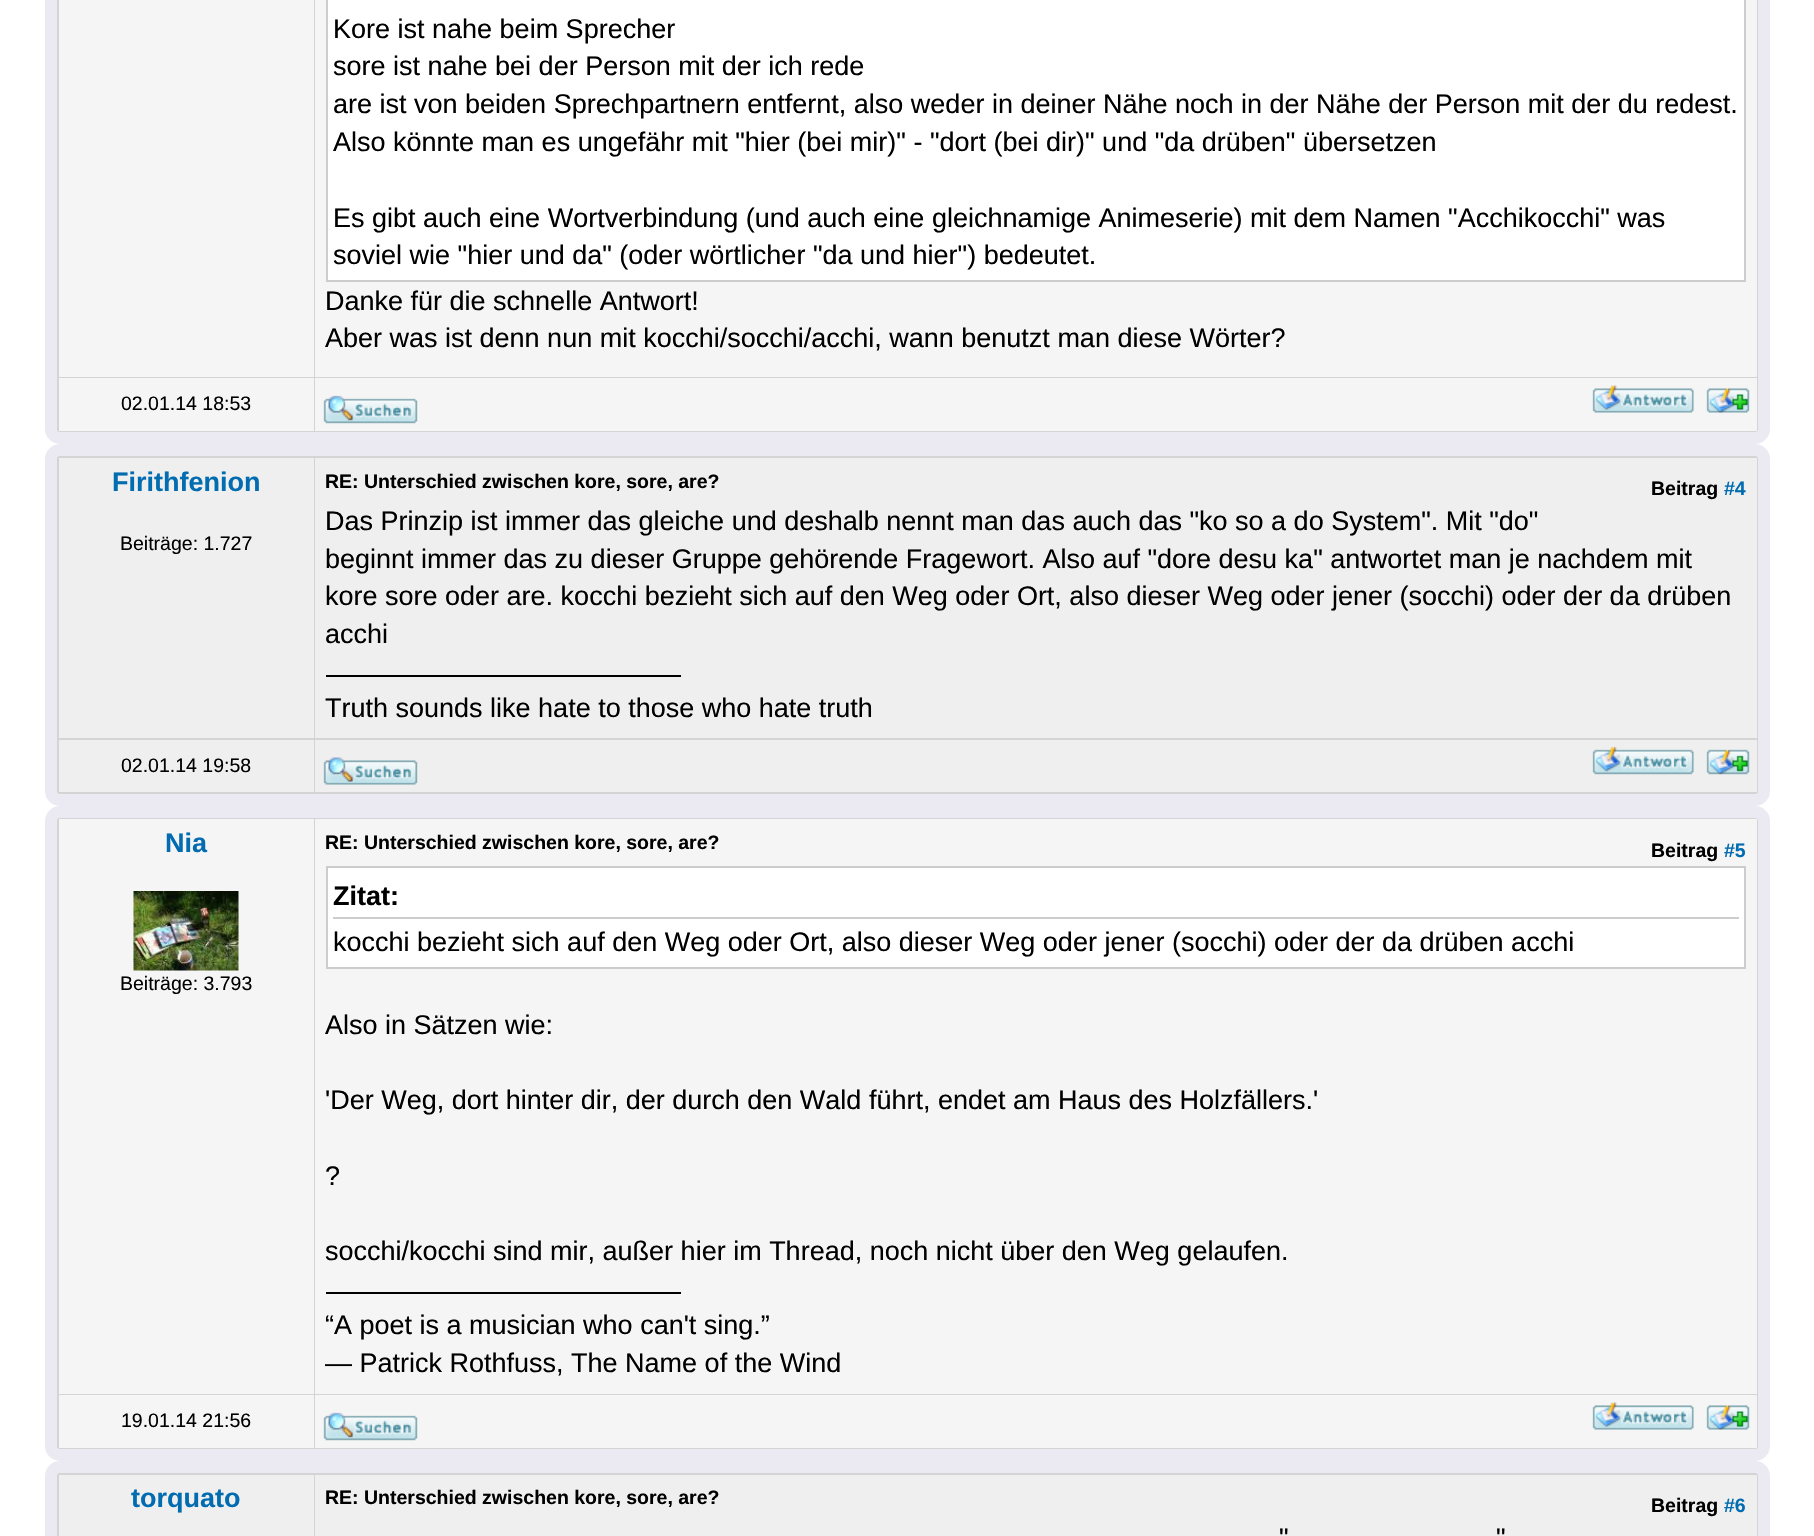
void draw(SkCanvas* canvas) {
    SkPaint paint;
    paint.setAntiAlias(true);
    canvas->clear(0xFFFFFFFF);
    paint.setColor(0xFFD4D4D4);
    canvas->drawRoundRect(SkRect::MakeXYWH(51, -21, 1713, 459), 9, 9, paint);
    paint.setStyle(SkPaint::kStroke_Style);
    paint.setStrokeWidth(12);
    paint.setColor(0xFFEBEAF2);
    canvas->drawRoundRect(SkRect::MakeXYWH(51, -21, 1713, 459), 9, 9, paint);
    paint.setStyle(SkPaint::kFill_Style);
    paint.setColor(0xFFF5F5F5);
    canvas->drawRect(SkRect::MakeXYWH(59, 0, 255, 377), paint);
    canvas->drawRect(SkRect::MakeXYWH(315, 0, 1442, 377), paint);
    paint.setColor(0xFFFFFFFF);
    canvas->drawRect(SkRect::MakeXYWH(327, -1, 1418, 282), paint);
    paint.setStyle(SkPaint::kStroke_Style);
    paint.setStrokeWidth(2);
    paint.setColor(0xFFCCCCCC);
    canvas->drawRect(SkRect::MakeXYWH(327, -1, 1418, 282), paint);
    SkFont font1(fontMgr->matchFamilyStyle("Liberation Sans", SkFontStyle::Normal()), 27);
    font1.setSubpixel(true);
    paint.setStyle(SkPaint::kFill_Style);
    paint.setColor(0xFF000000);
    canvas->drawString("Kore ist nahe beim Sprecher", 333, 38, font1, paint);
    canvas->drawString("sore ist nahe bei der Person mit der ich rede", 333, 75, font1, paint);
    canvas->drawString("are ist von beiden Sprechpartnern entfernt, also weder in deiner Nähe noch in der Nähe der Person mit der du redest.", 333, 113, font1, paint);
    canvas->drawString("Also könnte man es ungefähr mit \"hier (bei mir)\" - \"dort (bei dir)\" und \"da drüben\" übersetzen", 333, 151, font1, paint);
    canvas->drawString("Es gibt auch eine Wortverbindung (und auch eine gleichnamige Animeserie) mit dem Namen \"Acchikocchi\" was", 333, 227, font1, paint);
    canvas->drawString("soviel wie \"hier und da\" (oder wörtlicher \"da und hier\") bedeutet.", 333, 264, font1, paint);
    canvas->drawString("Danke für die schnelle Antwort!", 325, 310, font1, paint);
    canvas->drawString("Aber was ist denn nun mit kocchi/socchi/acchi, wann benutzt man diese Wörter?", 325, 347, font1, paint);
    paint.setColor(0xFFF5F5F5);
    canvas->drawRect(SkRect::MakeXYWH(59, 378, 255, 53), paint);
    SkFont font2(fontMgr->matchFamilyStyle("Liberation Sans", SkFontStyle::Normal()), 19.5f);
    font2.setSubpixel(true);
    paint.setColor(0xFF000000);
    canvas->drawString("02.01.14 18:53", 121, 410, font2, paint);
    paint.setColor(0xFFF5F5F5);
    canvas->drawRect(SkRect::MakeXYWH(315, 378, 1442, 53), paint);
    canvas->drawImageRect(SkImages::DeferredFromEncodedData(SkData::MakeFromFileName("img1.png")), SkRect::MakeXYWH(323, 395, 95, 29), SkSamplingOptions());
    canvas->drawImageRect(SkImages::DeferredFromEncodedData(SkData::MakeFromFileName("img2.png")), SkRect::MakeXYWH(1592, 385, 102, 28), SkSamplingOptions());
    canvas->drawImageRect(SkImages::DeferredFromEncodedData(SkData::MakeFromFileName("img3.png")), SkRect::MakeXYWH(1706, 388, 44, 25), SkSamplingOptions());
    paint.setColor(0xFFD4D4D4);
    canvas->drawRoundRect(SkRect::MakeXYWH(51, 450, 1713, 350), 9, 9, paint);
    paint.setStyle(SkPaint::kStroke_Style);
    paint.setStrokeWidth(12);
    paint.setColor(0xFFEBEAF2);
    canvas->drawRoundRect(SkRect::MakeXYWH(51, 450, 1713, 350), 9, 9, paint);
    paint.setStyle(SkPaint::kFill_Style);
    paint.setColor(0xFFEFEFEF);
    canvas->drawRect(SkRect::MakeXYWH(59, 458, 255, 280), paint);
    SkFont font3(fontMgr->matchFamilyStyle("Liberation Sans", SkFontStyle::Bold()), 27);
    font3.setSubpixel(true);
    paint.setColor(0xFF026CB1);
    canvas->drawString("Firithfenion", 112, 491, font3, paint);
    paint.setColor(0xFF000000);
    canvas->drawString("Beiträge: 1.727", 120, 550, font2, paint);
    paint.setColor(0xFFEFEFEF);
    canvas->drawRect(SkRect::MakeXYWH(315, 458, 1442, 280), paint);
    SkFont font4(fontMgr->matchFamilyStyle("Liberation Sans", SkFontStyle::Bold()), 19.5f);
    font4.setSubpixel(true);
    paint.setColor(0xFF000000);
    canvas->drawString("RE: Unterschied zwischen kore, sore, are?", 325, 488, font4, paint);
    canvas->drawString("Beitrag", 1651, 495, font4, paint);
    paint.setColor(0xFF026CB1);
    canvas->drawString("#4", 1724, 495, font4, paint);
    paint.setColor(0xFF000000);
    canvas->drawString("Das Prinzip ist immer das gleiche und deshalb nennt man das auch das \"ko so a do System\". Mit \"do\"", 325, 530, font1, paint);
    canvas->drawString("beginnt immer das zu dieser Gruppe gehörende Fragewort. Also auf \"dore desu ka\" antwortet man je nachdem mit", 325, 568, font1, paint);
    canvas->drawString("kore sore oder are. kocchi bezieht sich auf den Weg oder Ort, also dieser Weg oder jener (socchi) oder der da drüben", 325, 605, font1, paint);
    canvas->drawString("acchi", 325, 643, font1, paint);
    canvas->drawRect(SkRect::MakeXYWH(326, 675, 355, 2), paint);
    canvas->drawString("Truth sounds like hate to those who hate truth", 325, 717, font1, paint);
    paint.setColor(0xFFEFEFEF);
    canvas->drawRect(SkRect::MakeXYWH(59, 740, 255, 52), paint);
    paint.setColor(0xFF000000);
    canvas->drawString("02.01.14 19:58", 121, 772, font2, paint);
    paint.setColor(0xFFEFEFEF);
    canvas->drawRect(SkRect::MakeXYWH(315, 740, 1442, 52), paint);
    canvas->drawImageRect(SkImages::DeferredFromEncodedData(SkData::MakeFromFileName("img4.png")), SkRect::MakeXYWH(323, 757, 95, 28), SkSamplingOptions());
    canvas->drawImageRect(SkImages::DeferredFromEncodedData(SkData::MakeFromFileName("img5.png")), SkRect::MakeXYWH(1592, 746, 102, 29), SkSamplingOptions());
    canvas->drawImageRect(SkImages::DeferredFromEncodedData(SkData::MakeFromFileName("img6.png")), SkRect::MakeXYWH(1706, 749, 44, 26), SkSamplingOptions());
    paint.setColor(0xFFD4D4D4);
    canvas->drawRoundRect(SkRect::MakeXYWH(51, 812, 1713, 643), 9, 9, paint);
    paint.setStyle(SkPaint::kStroke_Style);
    paint.setColor(0xFFEBEAF2);
    canvas->drawRoundRect(SkRect::MakeXYWH(51, 812, 1713, 643), 9, 9, paint);
    paint.setStyle(SkPaint::kFill_Style);
    paint.setColor(0xFFF5F5F5);
    canvas->drawRect(SkRect::MakeXYWH(59, 819, 255, 575), paint);
    paint.setColor(0xFF026CB1);
    canvas->drawString("Nia", 165, 852, font3, paint);
    canvas->drawImageRect(SkImages::DeferredFromEncodedData(SkData::MakeFromFileName("img7.png")), SkRect::MakeXYWH(133, 891, 106, 80), SkSamplingOptions());
    paint.setColor(0xFF000000);
    canvas->drawString("Beiträge: 3.793", 120, 990, font2, paint);
    paint.setColor(0xFFF5F5F5);
    canvas->drawRect(SkRect::MakeXYWH(315, 819, 1442, 575), paint);
    paint.setColor(0xFF000000);
    canvas->drawString("RE: Unterschied zwischen kore, sore, are?", 325, 849, font4, paint);
    canvas->drawString("Beitrag", 1651, 857, font4, paint);
    paint.setColor(0xFF026CB1);
    canvas->drawString("#5", 1724, 857, font4, paint);
    paint.setColor(0xFFFFFFFF);
    canvas->drawRect(SkRect::MakeXYWH(327, 867, 1418, 101), paint);
    paint.setStyle(SkPaint::kStroke_Style);
    paint.setStrokeWidth(2);
    paint.setColor(0xFFCCCCCC);
    canvas->drawRect(SkRect::MakeXYWH(327, 867, 1418, 101), paint);
    paint.setStyle(SkPaint::kFill_Style);
    canvas->drawRect(SkRect::MakeXYWH(333, 917, 1406, 2), paint);
    paint.setColor(0xFF000000);
    canvas->drawString("Zitat:", 333, 905, font3, paint);
    canvas->drawString("kocchi bezieht sich auf den Weg oder Ort, also dieser Weg oder jener (socchi) oder der da drüben acchi", 333, 951, font1, paint);
    canvas->drawString("Also in Sätzen wie:", 325, 1034, font1, paint);
    canvas->drawString("'Der Weg, dort hinter dir, der durch den Wald führt, endet am Haus des Holzfällers.'", 325, 1109, font1, paint);
    canvas->drawString("?", 325, 1185, font1, paint);
    canvas->drawString("socchi/kocchi sind mir, außer hier im Thread, noch nicht über den Weg gelaufen.", 325, 1260, font1, paint);
    canvas->drawRect(SkRect::MakeXYWH(326, 1292, 355, 2), paint);
    canvas->drawString("“A poet is a musician who can't sing.”", 325, 1334, font1, paint);
    canvas->drawString("― Patrick Rothfuss, The Name of the Wind", 325, 1372, font1, paint);
    paint.setColor(0xFFF5F5F5);
    canvas->drawRect(SkRect::MakeXYWH(59, 1395, 255, 53), paint);
    paint.setColor(0xFF000000);
    canvas->drawString("19.01.14 21:56", 121, 1427, font2, paint);
    paint.setColor(0xFFF5F5F5);
    canvas->drawRect(SkRect::MakeXYWH(315, 1395, 1442, 53), paint);
    canvas->drawImageRect(SkImages::DeferredFromEncodedData(SkData::MakeFromFileName("img1.png")), SkRect::MakeXYWH(323, 1412, 95, 29), SkSamplingOptions());
    canvas->drawImageRect(SkImages::DeferredFromEncodedData(SkData::MakeFromFileName("img2.png")), SkRect::MakeXYWH(1592, 1402, 102, 28), SkSamplingOptions());
    canvas->drawImageRect(SkImages::DeferredFromEncodedData(SkData::MakeFromFileName("img3.png")), SkRect::MakeXYWH(1706, 1405, 44, 25), SkSamplingOptions());
    paint.setColor(0xFFD4D4D4);
    canvas->drawRoundRect(SkRect::MakeXYWH(51, 1467, 1713, 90), 9, 9, paint);
    paint.setStyle(SkPaint::kStroke_Style);
    paint.setStrokeWidth(12);
    paint.setColor(0xFFEBEAF2);
    canvas->drawRoundRect(SkRect::MakeXYWH(51, 1467, 1713, 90), 9, 9, paint);
    paint.setStyle(SkPaint::kFill_Style);
    paint.setColor(0xFFEFEFEF);
    canvas->drawRect(SkRect::MakeXYWH(59, 1475, 255, 61), paint);
    paint.setColor(0xFF026CB1);
    canvas->drawString("torquato", 131, 1507, font3, paint);
    paint.setColor(0xFFEFEFEF);
    canvas->drawRect(SkRect::MakeXYWH(315, 1475, 1442, 61), paint);
    paint.setColor(0xFF000000);
    canvas->drawString("RE: Unterschied zwischen kore, sore, are?", 325, 1504, font4, paint);
    canvas->drawString("Beitrag", 1651, 1512, font4, paint);
    paint.setColor(0xFF026CB1);
    canvas->drawString("#6", 1724, 1512, font4, paint);
    paint.setColor(0xFF000000);
    canvas->drawString("\"", 1279, 1547, font1, paint);
    canvas->drawString("\"", 1496, 1547, font1, paint);
}
